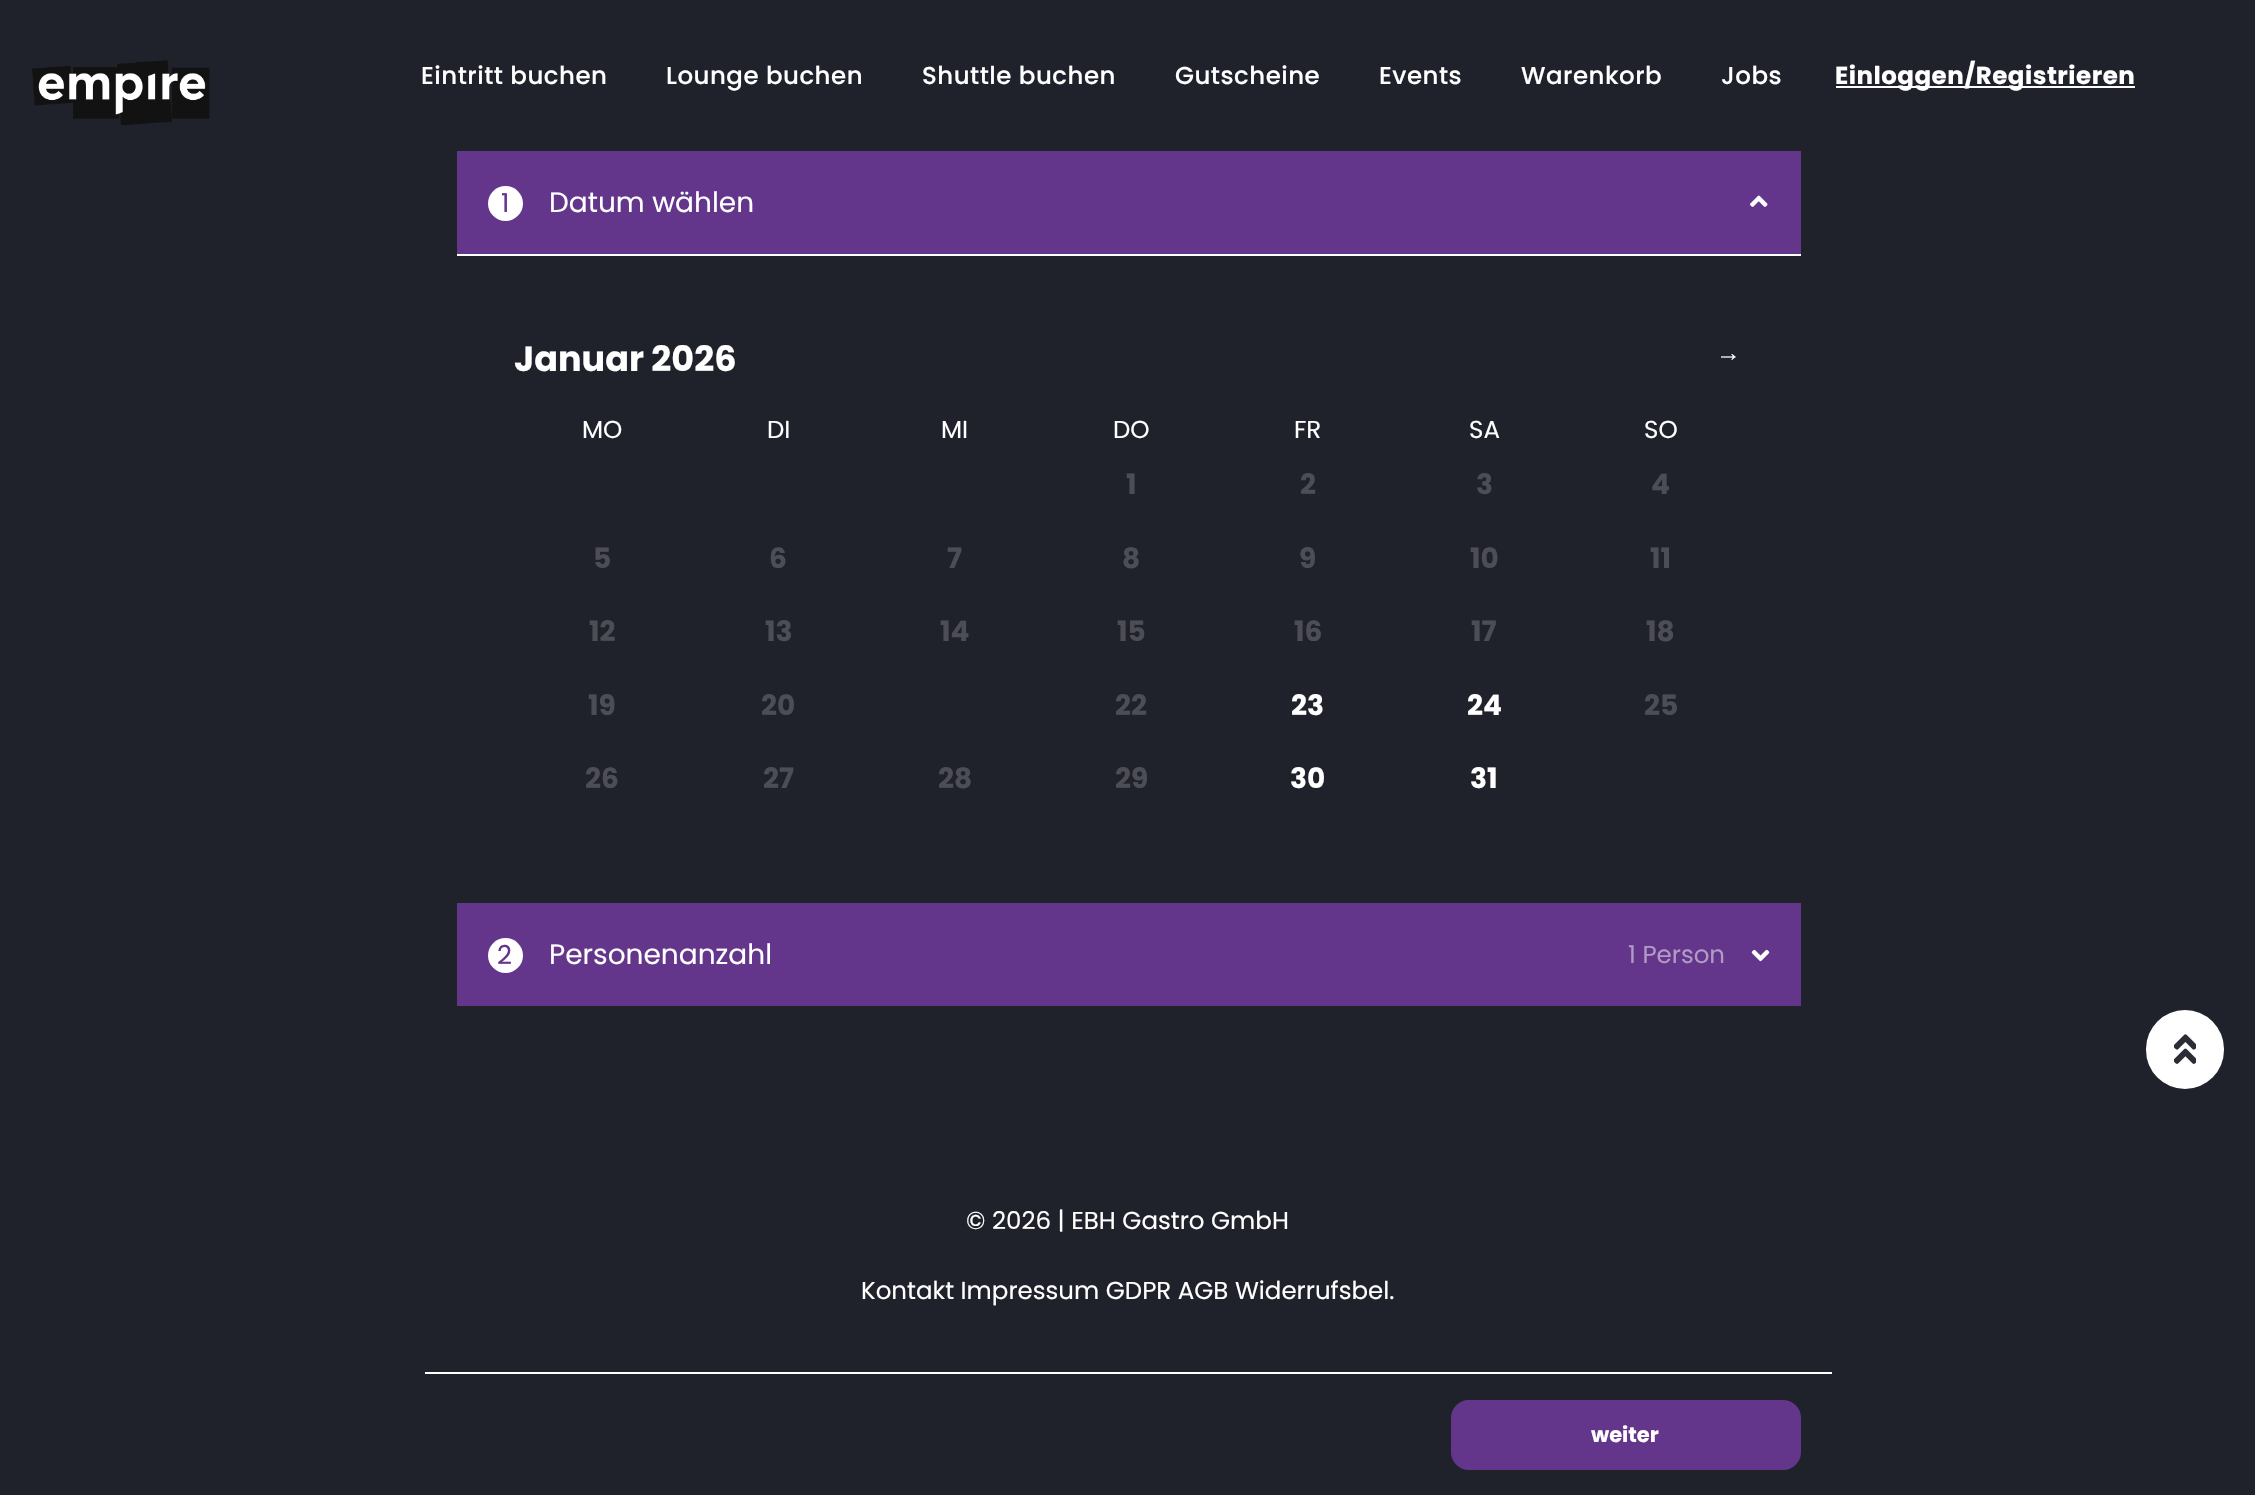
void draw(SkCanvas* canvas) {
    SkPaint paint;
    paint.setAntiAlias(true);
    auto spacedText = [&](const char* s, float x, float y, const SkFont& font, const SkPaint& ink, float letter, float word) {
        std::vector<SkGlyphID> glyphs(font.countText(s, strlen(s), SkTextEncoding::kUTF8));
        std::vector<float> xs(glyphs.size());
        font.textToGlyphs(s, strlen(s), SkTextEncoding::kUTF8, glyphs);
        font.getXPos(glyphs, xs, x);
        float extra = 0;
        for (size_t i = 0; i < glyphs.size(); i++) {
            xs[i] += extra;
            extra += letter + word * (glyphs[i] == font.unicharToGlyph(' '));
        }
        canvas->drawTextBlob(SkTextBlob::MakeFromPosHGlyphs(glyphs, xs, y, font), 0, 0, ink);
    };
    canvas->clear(0xFF1F212B);
    canvas->drawImageRect(SkImages::DeferredFromEncodedData(SkData::MakeFromFileName("img1.png")), SkRect::MakeXYWH(32, 60, 178, 66), SkSamplingOptions());
    SkFont font1(fontMgr->matchFamilyStyle("Poppins", SkFontStyle(500, SkFontStyle::kNormal_Width, SkFontStyle::kUpright_Slant)), 24.5f);
    font1.setSubpixel(true);
    paint.setColor(0xFFFFFFFF);
    spacedText("Eintritt buchen", 421, 84, font1, paint, 0.5f, 0);
    spacedText("Lounge buchen", 666, 84, font1, paint, 0.5f, 0);
    spacedText("Shuttle buchen", 922, 84, font1, paint, 0.5f, 0);
    spacedText("Gutscheine", 1175, 84, font1, paint, 0.5f, 0);
    spacedText("Events", 1379, 84, font1, paint, 0.5f, 0);
    spacedText("Warenkorb", 1521, 84, font1, paint, 0.5f, 0);
    spacedText("Jobs", 1721, 84, font1, paint, 0.5f, 0);
    canvas->drawRect(SkRect::MakeXYWH(1836, 86, 299, 2), paint);
    SkFont font2(fontMgr->matchFamilyStyle("Poppins", SkFontStyle::Bold()), 24.5f);
    font2.setSubpixel(true);
    spacedText("Einloggen/Registrieren", 1835, 84, font2, paint, 0.5f, 0);
    paint.setColor(0xFF63358B);
    canvas->drawRect(SkRect::MakeXYWH(457, 151, 1344, 103), paint);
    paint.setColor(0xFFFFFFFF);
    canvas->drawRect(SkRect::MakeXYWH(457, 254, 1344, 2), paint);
    canvas->drawCircle(505.5f, 203.5f, 17.5f, paint);
    SkFont font3(fontMgr->matchFamilyStyle("Poppins", SkFontStyle::Normal()), 26);
    font3.setSubpixel(true);
    paint.setColor(0xFF63358B);
    canvas->drawString("1", 501, 212, font3, paint);
    SkFont font4(fontMgr->matchFamilyStyle("Poppins", SkFontStyle::Normal()), 28);
    font4.setSubpixel(true);
    paint.setColor(0xFFFFFFFF);
    canvas->drawString("Datum wählen", 549, 212, font4, paint);
    canvas->drawImageRect(SkImages::DeferredFromEncodedData(SkData::MakeFromFileName("img2.png")), SkRect::MakeXYWH(1750, 195, 18, 12), SkSamplingOptions());
    SkFont font5(fontMgr->matchFamilyStyle("Poppins", SkFontStyle::Bold()), 35);
    font5.setSubpixel(true);
    canvas->drawString("Januar 2026", 514, 371, font5, paint);
    SkFont font6(fontMgr->matchFamilyStyle("Liberation Sans", SkFontStyle::Normal()), 24.5f);
    font6.setSubpixel(true);
    canvas->drawString("→", 1716, 361, font6, paint);
    SkFont font7(fontMgr->matchFamilyStyle("Poppins", SkFontStyle::Normal()), 24.5f);
    font7.setSubpixel(true);
    canvas->drawString("MO", 582, 438, font7, paint);
    canvas->drawString("DI", 767, 438, font7, paint);
    canvas->drawString("MI", 941, 438, font7, paint);
    canvas->drawString("DO", 1113, 438, font7, paint);
    canvas->drawString("FR", 1294, 438, font7, paint);
    canvas->drawString("SA", 1469, 438, font7, paint);
    canvas->drawString("SO", 1644, 438, font7, paint);
    SkFont font8(fontMgr->matchFamilyStyle("Poppins", SkFontStyle::Bold()), 28);
    font8.setSubpixel(true);
    paint.setColor(0xFF4C4D55);
    canvas->drawString("1", 1126, 494, font8, paint);
    canvas->drawString("2", 1300, 494, font8, paint);
    canvas->drawString("3", 1476, 494, font8, paint);
    canvas->drawString("4", 1651, 494, font8, paint);
    canvas->drawString("5", 593, 568, font8, paint);
    canvas->drawString("6", 769, 568, font8, paint);
    canvas->drawString("7", 947, 568, font8, paint);
    canvas->drawString("8", 1122, 568, font8, paint);
    canvas->drawString("9", 1299, 568, font8, paint);
    canvas->drawString("10", 1470, 568, font8, paint);
    canvas->drawString("11", 1650, 568, font8, paint);
    canvas->drawString("12", 589, 641, font8, paint);
    canvas->drawString("13", 765, 641, font8, paint);
    canvas->drawString("14", 940, 641, font8, paint);
    canvas->drawString("15", 1117, 641, font8, paint);
    canvas->drawString("16", 1294, 641, font8, paint);
    canvas->drawString("17", 1471, 641, font8, paint);
    canvas->drawString("18", 1646, 641, font8, paint);
    canvas->drawString("19", 588, 715, font8, paint);
    canvas->drawString("20", 761, 715, font8, paint);
    canvas->drawString("22", 1115, 715, font8, paint);
    paint.setColor(0xFFFFFFFF);
    canvas->drawString("23", 1291, 715, font8, paint);
    canvas->drawString("24", 1467, 715, font8, paint);
    paint.setColor(0xFF4C4D55);
    canvas->drawString("25", 1644, 715, font8, paint);
    canvas->drawString("26", 585, 788, font8, paint);
    canvas->drawString("27", 763, 788, font8, paint);
    canvas->drawString("28", 938, 788, font8, paint);
    canvas->drawString("29", 1115, 788, font8, paint);
    paint.setColor(0xFFFFFFFF);
    canvas->drawString("30", 1290, 788, font8, paint);
    canvas->drawString("31", 1470, 788, font8, paint);
    paint.setColor(0xFF63358B);
    canvas->drawRect(SkRect::MakeXYWH(457, 903, 1344, 103), paint);
    paint.setColor(0xFFFFFFFF);
    canvas->drawCircle(505.5f, 955.5f, 17.5f, paint);
    paint.setColor(0xFF63358B);
    canvas->drawString("2", 497, 964, font3, paint);
    paint.setColor(0xFFFFFFFF);
    canvas->drawString("Personenanzahl", 549, 964, font4, paint);
    paint.setColor(0xFFB19AC5);
    canvas->drawString("1 Person", 1628, 963, font7, paint);
    canvas->drawImageRect(SkImages::DeferredFromEncodedData(SkData::MakeFromFileName("img3.png")), SkRect::MakeXYWH(1751, 949, 19, 13), SkSamplingOptions());
    paint.setColor(0xFFFFFFFF);
    canvas->drawRect(SkRect::MakeXYWH(425, 1372, 1407, 2), paint);
    paint.setColor(0xFF63358B);
    canvas->drawRoundRect(SkRect::MakeXYWH(1453, 1402, 346, 66), 16, 16, paint);
    paint.setStyle(SkPaint::kStroke_Style);
    paint.setStrokeWidth(4);
    canvas->drawRoundRect(SkRect::MakeXYWH(1453, 1402, 346, 66), 16, 16, paint);
    SkFont font9(fontMgr->matchFamilyStyle("Poppins", SkFontStyle::Bold()), 21);
    font9.setSubpixel(true);
    paint.setStyle(SkPaint::kFill_Style);
    paint.setColor(0xFFFFFFFF);
    canvas->drawString("weiter", 1591, 1442, font9, paint);
    canvas->drawRoundRect(SkRect::MakeXYWH(2146, 1010, 78, 79), 39, 39, paint);
    canvas->drawImageRect(SkImages::DeferredFromEncodedData(SkData::MakeFromFileName("img4.png")), SkRect::MakeXYWH(2174, 1034, 22, 30), SkSamplingOptions());
    canvas->drawString("© 2026 | EBH Gastro GmbH", 966, 1229, font7, paint);
    canvas->drawString("Kontakt Impressum GDPR AGB Widerrufsbel.", 861, 1299, font7, paint);
}
